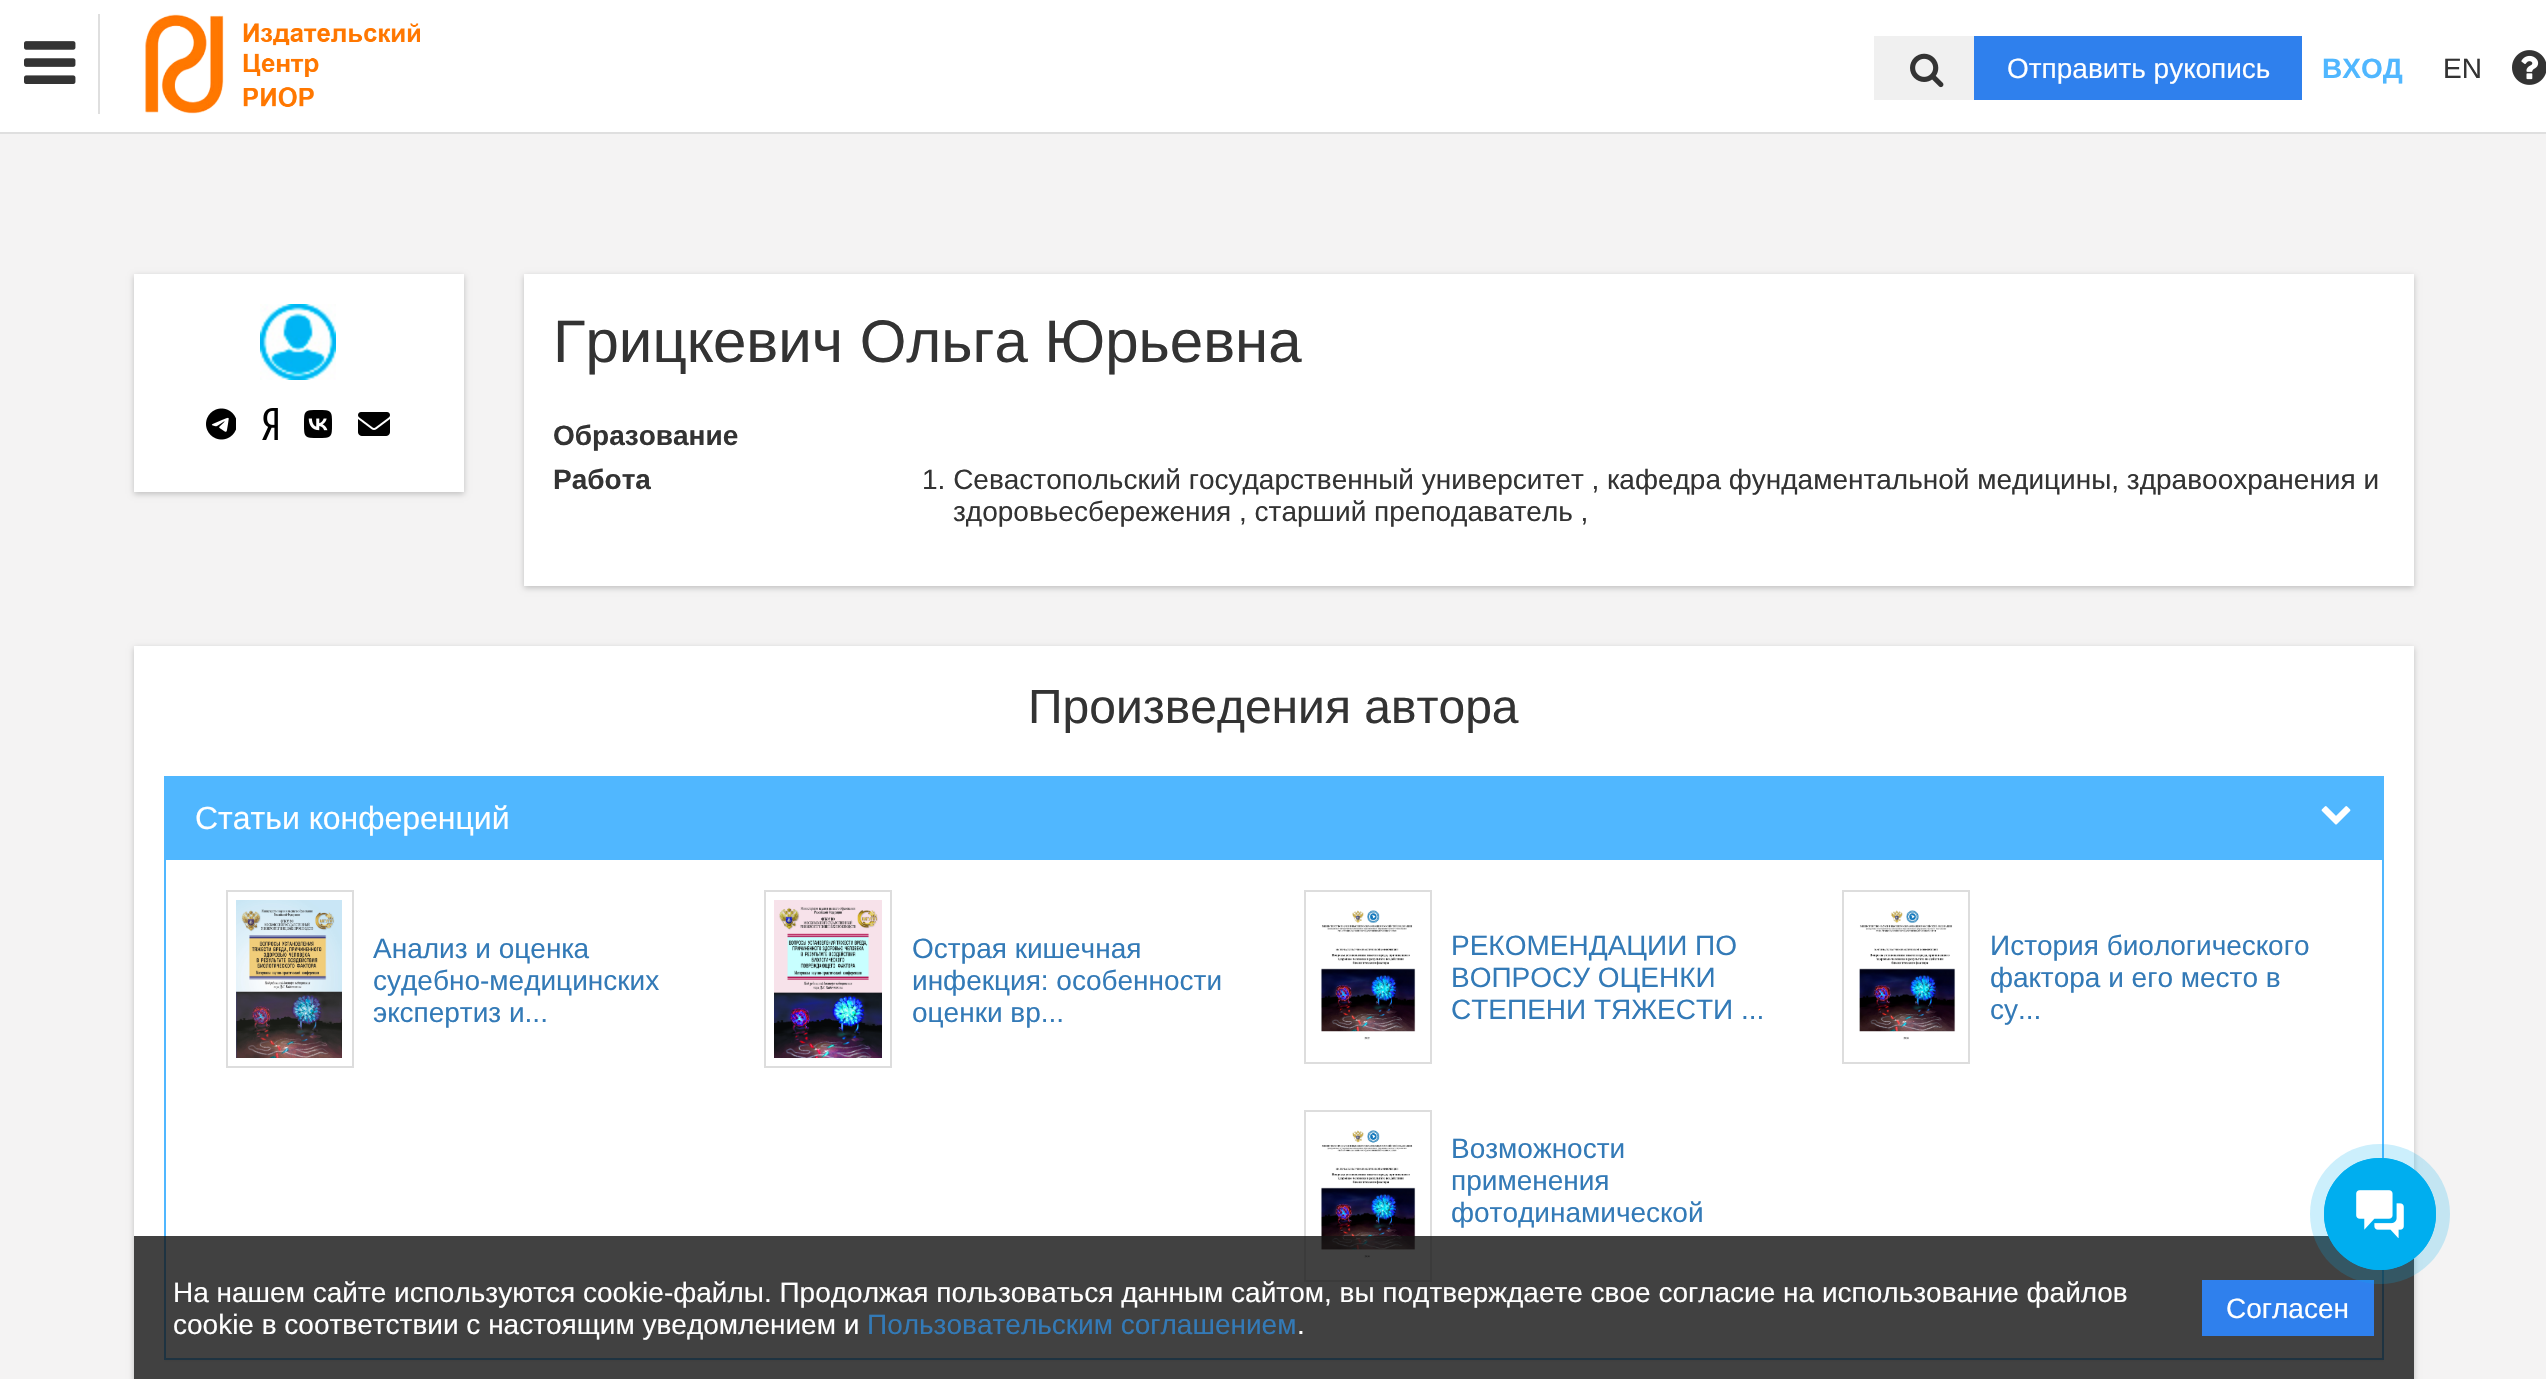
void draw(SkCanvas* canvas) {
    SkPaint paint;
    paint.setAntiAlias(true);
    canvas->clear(0xFFF4F3F3);
    paint.setColor(0xFFFFFFFF);
    canvas->drawRect(SkRect::MakeXYWH(0, 0, 2546, 132), paint);
    paint.setColor(0xFFDFDFDF);
    canvas->drawRect(SkRect::MakeXYWH(0, 132, 2546, 2), paint);
    canvas->drawRect(SkRect::MakeXYWH(98, 14, 2, 100), paint);
    canvas->drawImageRect(SkImages::DeferredFromEncodedData(SkData::MakeFromFileName("img1.png")), SkRect::MakeXYWH(24, 41, 52, 43), SkSamplingOptions());
    canvas->drawImageRect(SkImages::DeferredFromEncodedData(SkData::MakeFromFileName("img2.png")), SkRect::MakeXYWH(145, 14, 275, 101), SkSamplingOptions());
    paint.setColor(0xFFF0F0F0);
    canvas->drawRect(SkRect::MakeXYWH(1874, 36, 100, 64), paint);
    canvas->drawImageRect(SkImages::DeferredFromEncodedData(SkData::MakeFromFileName("img3.png")), SkRect::MakeXYWH(1910, 53, 34, 35), SkSamplingOptions());
    paint.setColor(0xFF2F80ED);
    canvas->drawRect(SkRect::MakeXYWH(1974, 36, 328, 64), paint);
    SkFont font1(fontMgr->matchFamilyStyle("Liberation Sans", SkFontStyle::Normal()), 28);
    font1.setSubpixel(true);
    paint.setColor(0xFFFFFFFF);
    canvas->drawString("Отправить рукопись", 2007, 78, font1, paint);
    SkFont font2(fontMgr->matchFamilyStyle("Liberation Sans", SkFontStyle::Bold()), 28);
    font2.setSubpixel(true);
    paint.setColor(0xFF50B7FF);
    canvas->drawString("ВХОД", 2322, 78, font2, paint);
    paint.setColor(0xFF333333);
    canvas->drawString("EN", 2443, 78, font1, paint);
    canvas->drawImageRect(SkImages::DeferredFromEncodedData(SkData::MakeFromFileName("img4.png")), SkRect::MakeXYWH(2512, 50, 34, 35), SkSamplingOptions());
    paint.setColor(0xFFBFBFBF);
    paint.setMaskFilter(SkMaskFilter::MakeBlur(kNormal_SkBlurStyle, 3));
    canvas->drawRect(SkRect::MakeXYWH(134, 276, 330, 218), paint);
    paint.setMaskFilter(nullptr);
    paint.setColor(0xFFFFFFFF);
    canvas->drawRect(SkRect::MakeXYWH(134, 274, 330, 218), paint);
    canvas->drawImageRect(SkImages::DeferredFromEncodedData(SkData::MakeFromFileName("img5.png")), SkRect::MakeXYWH(260, 304, 76, 76), SkSamplingOptions());
    canvas->drawImageRect(SkImages::DeferredFromEncodedData(SkData::MakeFromFileName("img6.png")), SkRect::MakeXYWH(206, 408, 30, 32), SkSamplingOptions());
    canvas->drawImageRect(SkImages::DeferredFromEncodedData(SkData::MakeFromFileName("img7.png")), SkRect::MakeXYWH(262, 408, 16, 32), SkSamplingOptions());
    canvas->drawImageRect(SkImages::DeferredFromEncodedData(SkData::MakeFromFileName("img8.png")), SkRect::MakeXYWH(304, 410, 28, 28), SkSamplingOptions());
    canvas->drawImageRect(SkImages::DeferredFromEncodedData(SkData::MakeFromFileName("img9.png")), SkRect::MakeXYWH(358, 412, 32, 24), SkSamplingOptions());
    paint.setColor(0xFFBFBFBF);
    paint.setMaskFilter(SkMaskFilter::MakeBlur(kNormal_SkBlurStyle, 3));
    canvas->drawRect(SkRect::MakeXYWH(524, 276, 1890, 312), paint);
    paint.setMaskFilter(nullptr);
    paint.setColor(0xFFFFFFFF);
    canvas->drawRect(SkRect::MakeXYWH(524, 274, 1890, 312), paint);
    SkFont font3(fontMgr->matchFamilyStyle("Liberation Sans", SkFontStyle::Normal()), 60);
    font3.setSubpixel(true);
    paint.setColor(0xFF333333);
    canvas->drawString("Грицкевич Ольга Юрьевна", 553, 362, font3, paint);
    canvas->drawString("Образование", 553, 445, font2, paint);
    canvas->drawString("Работа", 553, 489, font2, paint);
    canvas->drawString("1. Севастопольский государственный университет , кафедра фундаментальной медицины, здравоохранения и", 922, 489, font1, paint);
    canvas->drawString("здоровьесбережения , старший преподаватель ,", 953, 521, font1, paint);
    paint.setColor(0xFFBFBFBF);
    paint.setMaskFilter(SkMaskFilter::MakeBlur(kNormal_SkBlurStyle, 3));
    canvas->drawRect(SkRect::MakeXYWH(134, 648, 2280, 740), paint);
    paint.setMaskFilter(nullptr);
    paint.setColor(0xFFFFFFFF);
    canvas->drawRect(SkRect::MakeXYWH(134, 646, 2280, 733), paint);
    SkFont font4(fontMgr->matchFamilyStyle("Liberation Sans", SkFontStyle::Normal()), 48);
    font4.setSubpixel(true);
    paint.setColor(0xFF333333);
    canvas->drawString("Произведения автора", 1028, 723, font4, paint);
    canvas->save();
    canvas->clipRect(SkRect::MakeXYWH(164, 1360, 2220, 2));
    paint.setColor(0x0D000000);
    paint.setMaskFilter(SkMaskFilter::MakeBlur(kNormal_SkBlurStyle, 1));
    canvas->drawRect(SkRect::MakeXYWH(164, 778, 2220, 584), paint);
    paint.setMaskFilter(nullptr);
    canvas->restore();
    paint.setStyle(SkPaint::kStroke_Style);
    paint.setStrokeWidth(2);
    paint.setColor(0xFF50B7FF);
    canvas->drawRect(SkRect::MakeXYWH(165, 777, 2218, 582), paint);
    paint.setStyle(SkPaint::kFill_Style);
    canvas->drawRect(SkRect::MakeXYWH(166, 778, 2216, 82), paint);
    SkFont font5(fontMgr->matchFamilyStyle("Liberation Sans", SkFontStyle::Normal()), 32);
    font5.setSubpixel(true);
    paint.setColor(0xFFFFFFFF);
    canvas->drawString("Статьи конференций", 195, 829, font5, paint);
    canvas->drawImageRect(SkImages::DeferredFromEncodedData(SkData::MakeFromFileName("img10.png")), SkRect::MakeXYWH(2321, 806, 30, 19), SkSamplingOptions());
    paint.setStyle(SkPaint::kStroke_Style);
    paint.setColor(0xFFDDDDDD);
    canvas->drawRect(SkRect::MakeXYWH(227, 891, 126, 176), paint);
    canvas->drawImageRect(SkImages::DeferredFromEncodedData(SkData::MakeFromFileName("img11.png")), SkRect::MakeXYWH(236, 900, 106, 158), SkSamplingOptions());
    paint.setStyle(SkPaint::kFill_Style);
    paint.setColor(0xFF337AB7);
    canvas->drawString("Анализ и оценка", 373, 958, font1, paint);
    canvas->drawString("судебно-медицинских", 373, 990, font1, paint);
    canvas->drawString("экспертиз и...", 373, 1022, font1, paint);
    paint.setStyle(SkPaint::kStroke_Style);
    paint.setColor(0xFFDDDDDD);
    canvas->drawRect(SkRect::MakeXYWH(765, 891, 126, 176), paint);
    canvas->drawImageRect(SkImages::DeferredFromEncodedData(SkData::MakeFromFileName("img12.png")), SkRect::MakeXYWH(774, 900, 108, 158), SkSamplingOptions());
    paint.setStyle(SkPaint::kFill_Style);
    paint.setColor(0xFF337AB7);
    canvas->drawString("Острая кишечная", 912, 958, font1, paint);
    canvas->drawString("инфекция: особенности", 912, 990, font1, paint);
    canvas->drawString("оценки вр...", 912, 1022, font1, paint);
    paint.setStyle(SkPaint::kStroke_Style);
    paint.setColor(0xFFDDDDDD);
    canvas->drawRect(SkRect::MakeXYWH(1305, 891, 126, 172), paint);
    canvas->drawImageRect(SkImages::DeferredFromEncodedData(SkData::MakeFromFileName("img13.png")), SkRect::MakeXYWH(1321, 910, 95, 130), SkSamplingOptions());
    paint.setStyle(SkPaint::kFill_Style);
    paint.setColor(0xFF337AB7);
    canvas->drawString("РЕКОМЕНДАЦИИ ПО", 1451, 955, font1, paint);
    canvas->drawString("ВОПРОСУ ОЦЕНКИ", 1451, 987, font1, paint);
    canvas->drawString("СТЕПЕНИ ТЯЖЕСТИ ...", 1451, 1019, font1, paint);
    paint.setStyle(SkPaint::kStroke_Style);
    paint.setColor(0xFFDDDDDD);
    canvas->drawRect(SkRect::MakeXYWH(1843, 891, 126, 172), paint);
    canvas->drawImageRect(SkImages::DeferredFromEncodedData(SkData::MakeFromFileName("img14.png")), SkRect::MakeXYWH(1859, 910, 97, 130), SkSamplingOptions());
    paint.setStyle(SkPaint::kFill_Style);
    paint.setColor(0xFF337AB7);
    canvas->drawString("История биологического", 1990, 955, font1, paint);
    canvas->drawString("фактора и его место в", 1990, 987, font1, paint);
    canvas->drawString("су...", 1990, 1019, font1, paint);
    paint.setStyle(SkPaint::kStroke_Style);
    paint.setColor(0xFFDDDDDD);
    canvas->drawRect(SkRect::MakeXYWH(1305, 1111, 126, 170), paint);
    canvas->drawImageRect(SkImages::DeferredFromEncodedData(SkData::MakeFromFileName("img15.png")), SkRect::MakeXYWH(1321, 1130, 95, 128), SkSamplingOptions());
    paint.setStyle(SkPaint::kFill_Style);
    paint.setColor(0xFF337AB7);
    canvas->drawString("Возможности", 1451, 1158, font1, paint);
    canvas->drawString("применения", 1451, 1190, font1, paint);
    canvas->drawString("фотодинамической", 1451, 1222, font1, paint);
    paint.setColor(0xCC121212);
    canvas->drawRect(SkRect::MakeXYWH(134, 1236, 2280, 143), paint);
    paint.setColor(0xFFFFFFFF);
    canvas->drawString("На нашем сайте используются cookie-файлы. Продолжая пользоваться данным сайтом, вы подтверждаете свое согласие на использование файлов", 173, 1302, font1, paint);
    canvas->drawString("cookie в соответствии с настоящим уведомлением и", 173, 1334, font1, paint);
    paint.setColor(0xFF337AB7);
    canvas->drawString("Пользовательским соглашением", 867, 1334, font1, paint);
    paint.setColor(0xFFFFFFFF);
    canvas->drawString(".", 1297, 1334, font1, paint);
    paint.setColor(0xFF2F80ED);
    canvas->drawRect(SkRect::MakeXYWH(2202, 1280, 172, 56), paint);
    paint.setColor(0xFFFFFFFF);
    canvas->drawString("Согласен", 2226, 1318, font1, paint);
    paint.setColor(0x3300AEEF);
    canvas->drawCircle(2380, 1214, 70, paint);
    paint.setStyle(SkPaint::kStroke_Style);
    paint.setColor(0xFF00AEEF);
    canvas->drawCircle(2380, 1214, 55, paint);
    paint.setStyle(SkPaint::kFill_Style);
    canvas->drawCircle(2380, 1214, 56, paint);
    canvas->drawImageRect(SkImages::DeferredFromEncodedData(SkData::MakeFromFileName("img16.png")), SkRect::MakeXYWH(2356, 1190, 48, 48), SkSamplingOptions());
}
